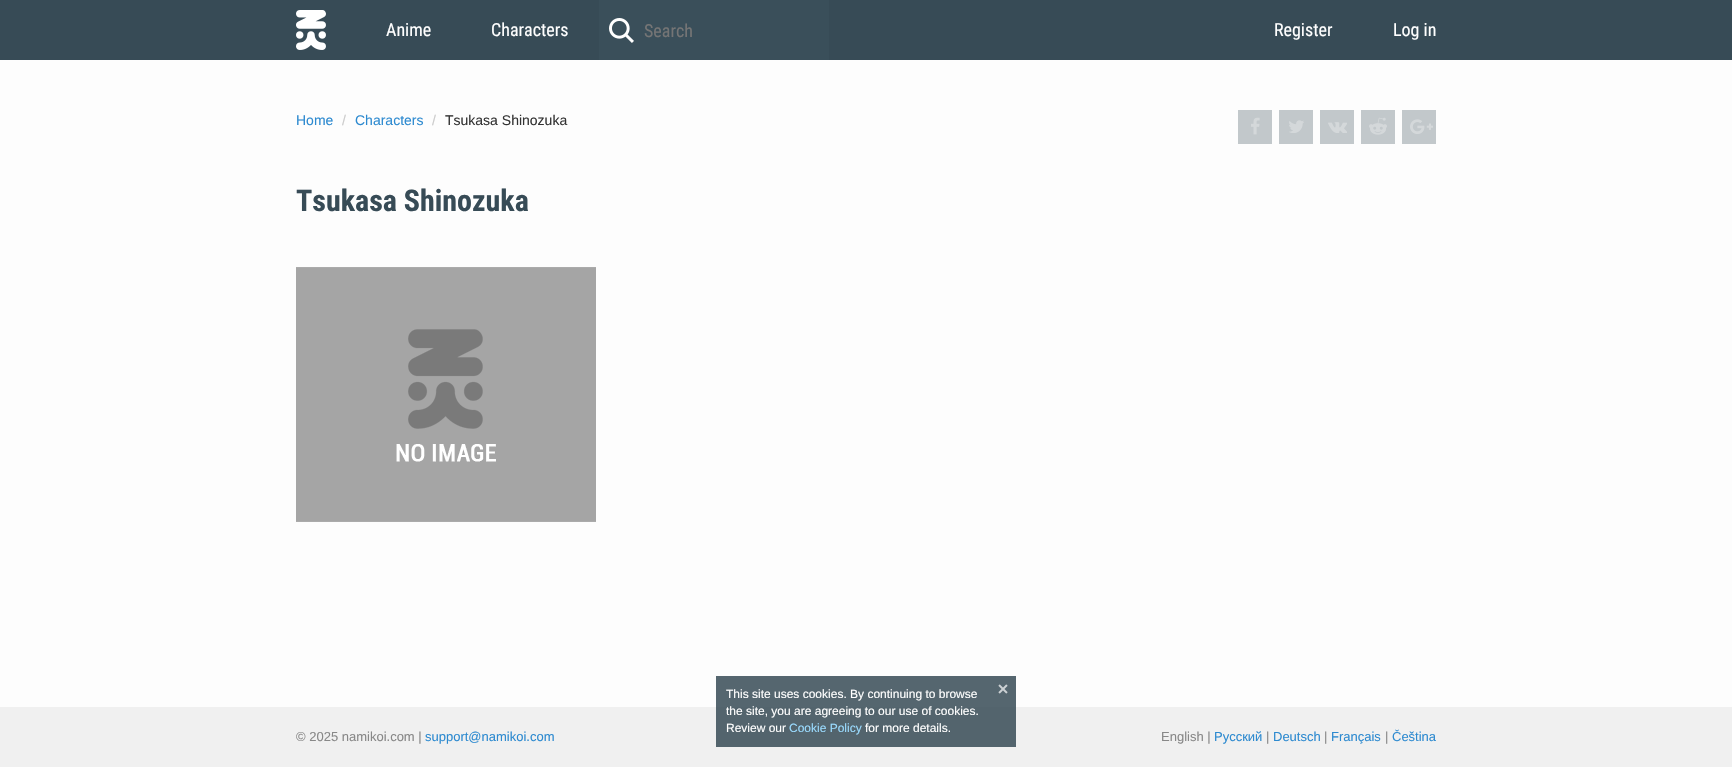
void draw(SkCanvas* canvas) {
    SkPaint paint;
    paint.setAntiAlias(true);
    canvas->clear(0xFFFDFDFD);
    paint.setColor(0xFF55666F);
    canvas->drawRect(SkRect::MakeXYWH(716, 676, 300, 31), paint);
    paint.setColor(0xFF374B56);
    canvas->drawRect(SkRect::MakeXYWH(0, 0, 1732, 60), paint);
    canvas->drawImageRect(SkImages::DeferredFromEncodedData(SkData::MakeFromFileName("img1.png")), SkRect::MakeXYWH(296, 10, 30, 40), SkSamplingOptions());
    SkFont font1(fontMgr->matchFamilyStyle("Roboto Condensed", SkFontStyle::Normal()), 18);
    font1.setSubpixel(true);
    paint.setColor(0xFFFFFFFF);
    canvas->drawString("Anime", 386, 36, font1, paint);
    canvas->drawString("Characters", 491, 36, font1, paint);
    paint.setColor(0xFF3A4F5A);
    canvas->drawRect(SkRect::MakeXYWH(599, 0, 230, 60), paint);
    canvas->drawImageRect(SkImages::DeferredFromEncodedData(SkData::MakeFromFileName("img2.png")), SkRect::MakeXYWH(609, 18, 25, 25), SkSamplingOptions());
    paint.setColor(0xFF757575);
    canvas->drawString("Search", 644, 37, font1, paint);
    paint.setColor(0xFFFFFFFF);
    canvas->drawString("Register", 1274, 36, font1, paint);
    canvas->drawString("Log in", 1393, 36, font1, paint);
    SkFont font2(fontMgr->matchFamilyStyle("Liberation Sans", SkFontStyle::Normal()), 14);
    font2.setSubpixel(true);
    paint.setColor(0xFF2D8AD0);
    canvas->drawString("Home", 296, 125, font2, paint);
    paint.setColor(0xFFCCCCCC);
    canvas->drawString("/", 342, 125, font2, paint);
    paint.setColor(0xFF2D8AD0);
    canvas->drawString("Characters", 355, 125, font2, paint);
    paint.setColor(0xFFCCCCCC);
    canvas->drawString("/", 432, 125, font2, paint);
    paint.setColor(0xFF333333);
    canvas->drawString("Tsukasa Shinozuka", 445, 125, font2, paint);
    paint.setColor(0xFFC2C8CB);
    canvas->drawRect(SkRect::MakeXYWH(1238, 110, 34, 34), paint);
    canvas->drawImageRect(SkImages::DeferredFromEncodedData(SkData::MakeFromFileName("img3.png")), SkRect::MakeXYWH(1251, 117, 9, 18), SkSamplingOptions());
    canvas->drawRect(SkRect::MakeXYWH(1279, 110, 34, 34), paint);
    canvas->drawImageRect(SkImages::DeferredFromEncodedData(SkData::MakeFromFileName("img4.png")), SkRect::MakeXYWH(1289, 120, 15, 13), SkSamplingOptions());
    canvas->drawRect(SkRect::MakeXYWH(1320, 110, 34, 34), paint);
    canvas->drawImageRect(SkImages::DeferredFromEncodedData(SkData::MakeFromFileName("img5.png")), SkRect::MakeXYWH(1328, 122, 19, 11), SkSamplingOptions());
    canvas->drawRect(SkRect::MakeXYWH(1361, 110, 34, 34), paint);
    canvas->drawImageRect(SkImages::DeferredFromEncodedData(SkData::MakeFromFileName("img6.png")), SkRect::MakeXYWH(1369, 117, 18, 18), SkSamplingOptions());
    canvas->drawRect(SkRect::MakeXYWH(1402, 110, 34, 34), paint);
    canvas->drawImageRect(SkImages::DeferredFromEncodedData(SkData::MakeFromFileName("img7.png")), SkRect::MakeXYWH(1410, 119, 23, 15), SkSamplingOptions());
    SkFont font3(fontMgr->matchFamilyStyle("Roboto Condensed", SkFontStyle::Bold()), 30);
    font3.setSubpixel(true);
    paint.setColor(0xFF374B56);
    canvas->drawString("Tsukasa Shinozuka", 296, 211, font3, paint);
    canvas->drawImageRect(SkImages::DeferredFromEncodedData(SkData::MakeFromFileName("img8.png")), SkRect::MakeXYWH(296, 267, 300, 255), SkSamplingOptions());
    SkFont font4(fontMgr->matchFamilyStyle("Liberation Sans", SkFontStyle::Normal()), 12);
    font4.setSubpixel(true);
    paint.setColor(0xFFFFFFFF);
    canvas->drawString("This site uses cookies. By continuing to browse", 726, 698, font4, paint);
    canvas->drawImageRect(SkImages::DeferredFromEncodedData(SkData::MakeFromFileName("img9.png")), SkRect::MakeXYWH(998, 684, 10, 10), SkSamplingOptions());
    paint.setColor(0xFFF0F0F0);
    canvas->drawRect(SkRect::MakeXYWH(0, 707, 1732, 60), paint);
    paint.setColor(0xFF53646D);
    canvas->drawRect(SkRect::MakeXYWH(716, 707, 300, 40), paint);
    paint.setColor(0xFFFFFFFF);
    canvas->drawString("the site, you are agreeing to our use of cookies.", 726, 715, font4, paint);
    canvas->drawString("Review our", 726, 732, font4, paint);
    paint.setColor(0xFF9ADBFF);
    canvas->drawString("Cookie Policy", 789, 732, font4, paint);
    paint.setColor(0xFFFFFFFF);
    canvas->drawString("for more details.", 865, 732, font4, paint);
    SkFont font5(fontMgr->matchFamilyStyle("Liberation Sans", SkFontStyle::Normal()), 13);
    font5.setSubpixel(true);
    paint.setColor(0xFF888888);
    canvas->drawString("© 2025 namikoi.com |", 296, 741, font5, paint);
    paint.setColor(0xFF2D8AD0);
    canvas->drawString("support@namikoi.com", 425, 741, font5, paint);
    paint.setColor(0xFF888888);
    canvas->drawString("English |", 1161, 741, font5, paint);
    paint.setColor(0xFF2D8AD0);
    canvas->drawString("Русский", 1214, 741, font5, paint);
    paint.setColor(0xFF888888);
    canvas->drawString("|", 1266, 741, font5, paint);
    paint.setColor(0xFF2D8AD0);
    canvas->drawString("Deutsch", 1273, 741, font5, paint);
    paint.setColor(0xFF888888);
    canvas->drawString("|", 1324, 741, font5, paint);
    paint.setColor(0xFF2D8AD0);
    canvas->drawString("Français", 1331, 741, font5, paint);
    paint.setColor(0xFF888888);
    canvas->drawString("|", 1385, 741, font5, paint);
    paint.setColor(0xFF2D8AD0);
    canvas->drawString("Čeština", 1392, 741, font5, paint);
}
